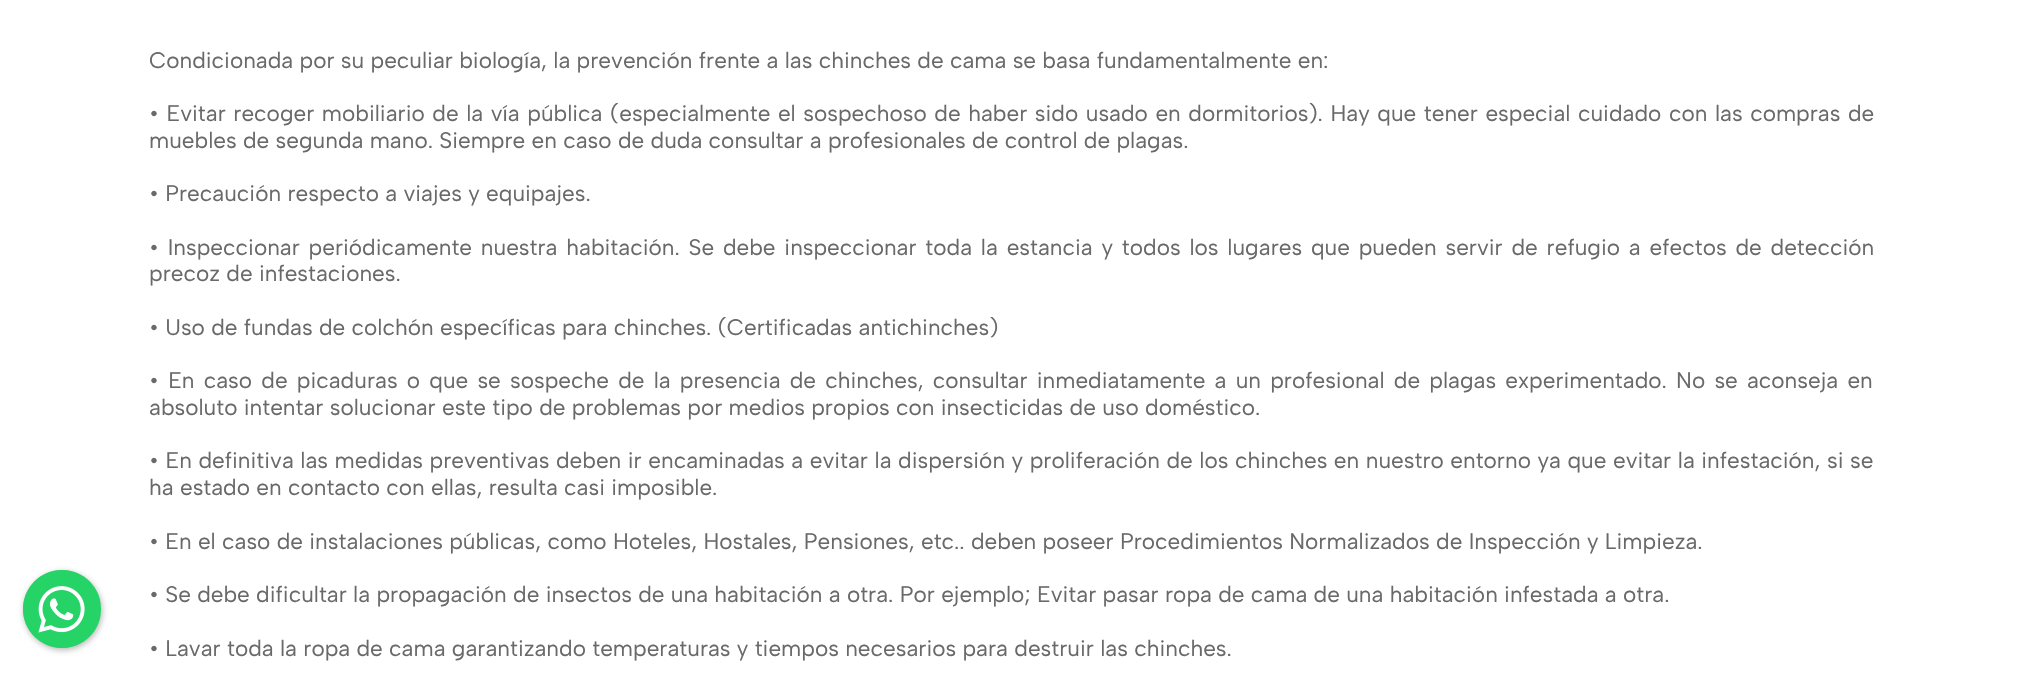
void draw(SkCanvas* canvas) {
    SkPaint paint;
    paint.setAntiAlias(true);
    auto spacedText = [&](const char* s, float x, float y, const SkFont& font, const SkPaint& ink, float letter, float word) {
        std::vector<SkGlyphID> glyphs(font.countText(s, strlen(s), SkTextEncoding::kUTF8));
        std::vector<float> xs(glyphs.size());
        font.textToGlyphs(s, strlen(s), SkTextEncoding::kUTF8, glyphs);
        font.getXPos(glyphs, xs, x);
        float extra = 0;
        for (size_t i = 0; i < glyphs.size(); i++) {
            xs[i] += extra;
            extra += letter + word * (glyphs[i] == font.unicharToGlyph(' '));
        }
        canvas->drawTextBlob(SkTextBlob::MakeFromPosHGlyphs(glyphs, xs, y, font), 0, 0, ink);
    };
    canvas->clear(0xFFFFFFFF);
    paint.setColor(0x663C3C3C);
    paint.setMaskFilter(SkMaskFilter::MakeBlur(kNormal_SkBlurStyle, 3));
    canvas->drawRoundRect(SkRect::MakeXYWH(24, 572, 78, 78), 39, 39, paint);
    paint.setMaskFilter(nullptr);
    paint.setColor(0xFF25D366);
    canvas->drawCircle(62, 609, 39, paint);
    canvas->drawImageRect(SkImages::DeferredFromEncodedData(SkData::MakeFromFileName("img1.png")), SkRect::MakeXYWH(23, 570, 78, 78), SkSamplingOptions());
    SkFont font1(fontMgr->matchFamilyStyle("Albert Sans", SkFontStyle::Normal()), 22.5f);
    font1.setSubpixel(true);
    paint.setColor(0xFF696969);
    canvas->drawString("Condicionada por su peculiar biología, la prevención frente a las chinches de cama se basa fundamentalmente en:", 149, 68, font1, paint);
    spacedText("• Evitar recoger mobiliario de la vía pública (especialmente el sospechoso de haber sido usado en dormitorios). Hay que tener especial cuidado con las compras de", 149, 121, font1, paint, 0, 1.25f);
    canvas->drawString("muebles de segunda mano. Siempre en caso de duda consultar a profesionales de control de plagas.", 149, 148, font1, paint);
    canvas->drawString("• Precaución respecto a viajes y equipajes.", 149, 201, font1, paint);
    spacedText("• Inspeccionar periódicamente nuestra habitación. Se debe inspeccionar toda la estancia y todos los lugares que pueden servir de refugio a efectos de detección", 149, 255, font1, paint, 0, 2.5f);
    canvas->drawString("precoz de infestaciones.", 149, 281, font1, paint);
    canvas->drawString("• Uso de fundas de colchón específicas para chinches. (Certificadas antichinches)", 149, 335, font1, paint);
    spacedText("• En caso de picaduras o que se sospeche de la presencia de chinches, consultar inmediatamente a un profesional de plagas experimentado. No se aconseja en", 149, 388, font1, paint, 0, 2.9f);
    canvas->drawString("absoluto intentar solucionar este tipo de problemas por medios propios con insecticidas de uso doméstico.", 149, 415, font1, paint);
    spacedText("• En definitiva las medidas preventivas deben ir encaminadas a evitar la dispersión y proliferación de los chinches en nuestro entorno ya que evitar la infestación, si se", 149, 468, font1, paint, 0, 0.25f);
    canvas->drawString("ha estado en contacto con ellas, resulta casi imposible.", 149, 495, font1, paint);
    canvas->drawString("• En el caso de instalaciones públicas, como Hoteles, Hostales, Pensiones, etc.. deben poseer Procedimientos Normalizados de Inspección y Limpieza.", 149, 549, font1, paint);
    canvas->drawString("• Se debe dificultar la propagación de insectos de una habitación a otra. Por ejemplo; Evitar pasar ropa de cama de una habitación infestada a otra.", 149, 602, font1, paint);
    canvas->drawString("• Lavar toda la ropa de cama garantizando temperaturas y tiempos necesarios para destruir las chinches.", 149, 656, font1, paint);
}
